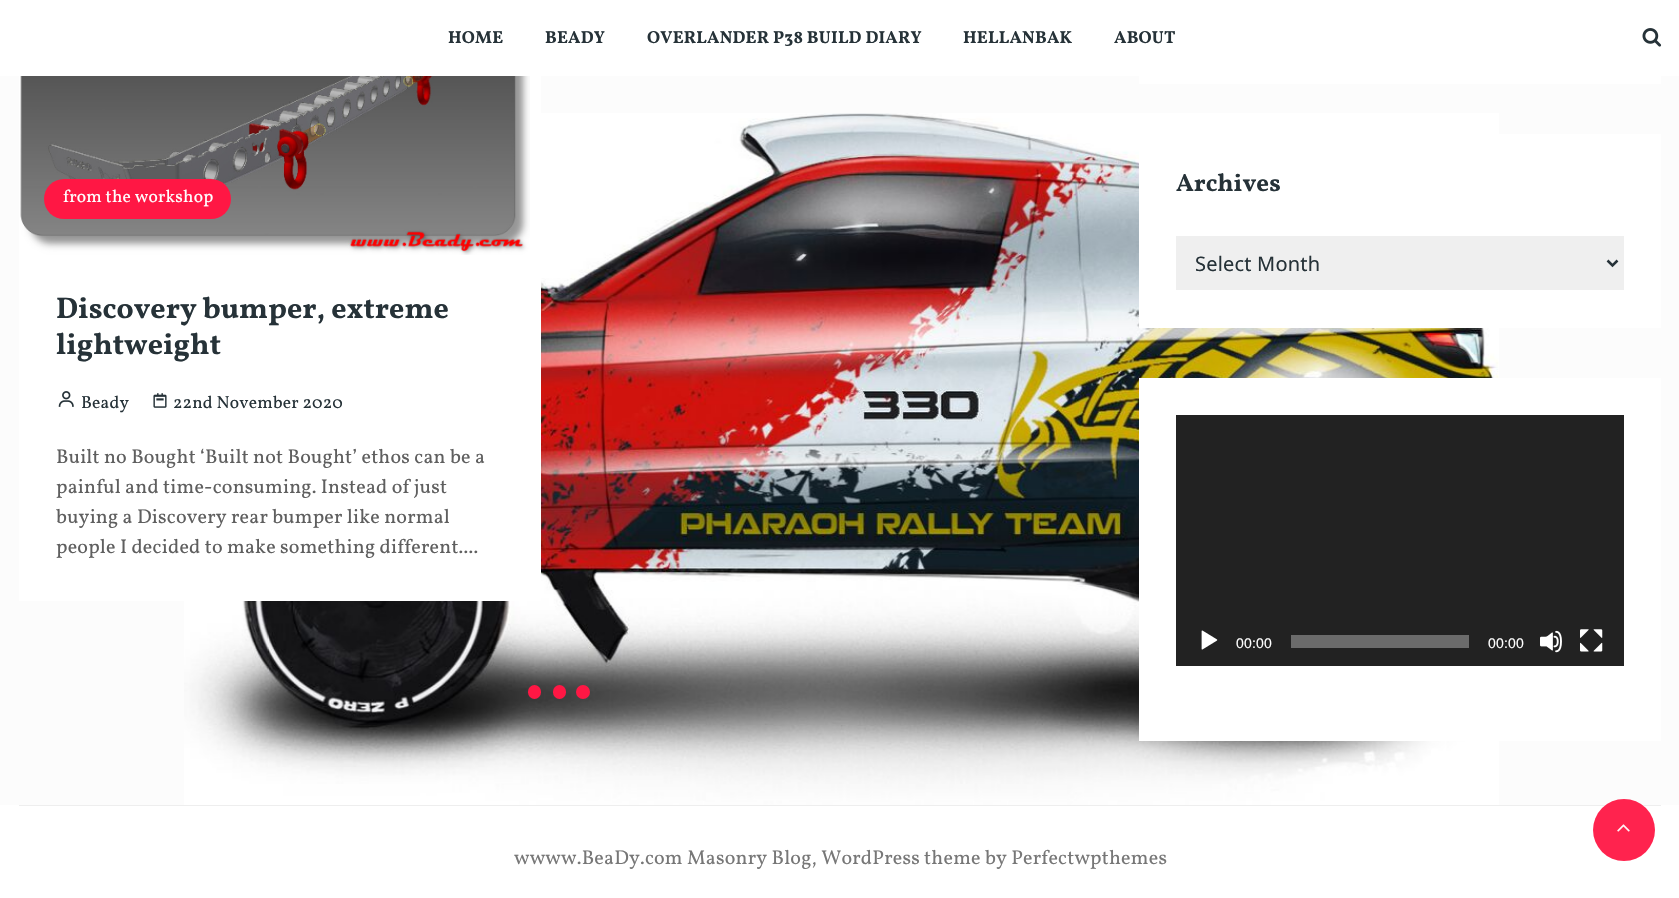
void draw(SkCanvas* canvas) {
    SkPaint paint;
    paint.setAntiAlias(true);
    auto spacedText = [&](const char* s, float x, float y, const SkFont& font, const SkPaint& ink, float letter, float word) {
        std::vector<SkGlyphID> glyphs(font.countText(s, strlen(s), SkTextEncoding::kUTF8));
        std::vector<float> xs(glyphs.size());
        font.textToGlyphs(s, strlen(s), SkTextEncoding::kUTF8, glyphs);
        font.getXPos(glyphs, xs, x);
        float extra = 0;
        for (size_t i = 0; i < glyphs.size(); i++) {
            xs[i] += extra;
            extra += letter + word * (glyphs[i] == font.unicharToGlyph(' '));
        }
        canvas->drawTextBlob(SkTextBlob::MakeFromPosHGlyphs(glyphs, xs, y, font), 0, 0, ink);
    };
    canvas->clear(0xFFFCFCFC);
    canvas->drawImageRect(SkImages::DeferredFromEncodedData(SkData::MakeFromFileName("img1.png")), SkRect::MakeXYWH(184, 113, 1315, 692), SkSamplingOptions());
    paint.setColor(0xFFFFFFFF);
    canvas->drawRect(SkRect::MakeXYWH(0, 0, 1679, 76), paint);
    SkFont font1(fontMgr->matchFamilyStyle("Vollkorn", SkFontStyle::Bold()), 17.5f);
    font1.setSubpixel(true);
    paint.setColor(0xFF263238);
    spacedText("HOME", 448, 43, font1, paint, 0.2f, 0);
    spacedText("BEADY", 545, 43, font1, paint, 0.2f, 0);
    spacedText("OVERLANDER P38 BUILD DIARY", 647, 43, font1, paint, 0.2f, 0);
    spacedText("HELLANBAK", 963, 43, font1, paint, 0.2f, 0);
    spacedText("ABOUT", 1114, 43, font1, paint, 0.2f, 0);
    canvas->drawImageRect(SkImages::DeferredFromEncodedData(SkData::MakeFromFileName("img2.png")), SkRect::MakeXYWH(1642, 28, 20, 19), SkSamplingOptions());
    paint.setColor(0xFFFFFFFF);
    canvas->drawRect(SkRect::MakeXYWH(19, 76, 522, 525), paint);
    canvas->drawImageRect(SkImages::DeferredFromEncodedData(SkData::MakeFromFileName("img3.png")), SkRect::MakeXYWH(20, 76, 510, 179), SkSamplingOptions());
    paint.setColor(0xFFFF1744);
    canvas->drawRoundRect(SkRect::MakeXYWH(44, 179, 187, 40), 20, 20, paint);
    SkFont font2(fontMgr->matchFamilyStyle("Vollkorn", SkFontStyle::Normal()), 17.5f);
    font2.setSubpixel(true);
    paint.setColor(0xFFFFFFFF);
    spacedText("from the workshop", 63, 202, font2, paint, 0.2f, 0);
    SkFont font3(fontMgr->matchFamilyStyle("Vollkorn", SkFontStyle::Bold()), 30);
    font3.setSubpixel(true);
    paint.setColor(0xFF263238);
    canvas->drawString("Discovery bumper, extreme", 56, 318, font3, paint);
    canvas->drawString("lightweight", 56, 354, font3, paint);
    canvas->drawImageRect(SkImages::DeferredFromEncodedData(SkData::MakeFromFileName("img4.png")), SkRect::MakeXYWH(58, 391, 16, 16), SkSamplingOptions());
    spacedText("Beady", 81, 408, font2, paint, 0.2f, 0);
    canvas->drawImageRect(SkImages::DeferredFromEncodedData(SkData::MakeFromFileName("img5.png")), SkRect::MakeXYWH(153, 393, 14, 15), SkSamplingOptions());
    spacedText("22nd November 2020", 173, 408, font2, paint, 0.2f, 0);
    SkFont font4(fontMgr->matchFamilyStyle("Vollkorn", SkFontStyle::Normal()), 20);
    font4.setSubpixel(true);
    paint.setColor(0xFF5F5F5F);
    spacedText("Built no Bought ‘Built not Bought’ ethos can be a", 56, 463, font4, paint, 0.2f, 0);
    spacedText("painful and time-consuming. Instead of just", 56, 493, font4, paint, 0.2f, 0);
    spacedText("buying a Discovery rear bumper like normal", 56, 523, font4, paint, 0.2f, 0);
    spacedText("people I decided to make something different....", 56, 553, font4, paint, 0.2f, 0);
    paint.setColor(0xFFFF1744);
    canvas->drawRoundRect(SkRect::MakeXYWH(528, 685, 13, 14), 6.5f, 6.5f, paint);
    canvas->drawRoundRect(SkRect::MakeXYWH(553, 685, 13, 14), 6.5f, 6.5f, paint);
    canvas->drawCircle(583, 692, 7, paint);
    paint.setColor(0xFFFFFFFF);
    canvas->drawRect(SkRect::MakeXYWH(1139, 76, 522, 8), paint);
    canvas->drawRect(SkRect::MakeXYWH(1139, 134, 522, 194), paint);
    SkFont font5(fontMgr->matchFamilyStyle("Vollkorn", SkFontStyle::Bold()), 25);
    font5.setSubpixel(true);
    paint.setColor(0xFF263238);
    canvas->drawString("Archives", 1176, 191, font5, paint);
    paint.setColor(0xFFEFEFEF);
    canvas->drawRect(SkRect::MakeXYWH(1176, 236, 448, 54), paint);
    paint.setStyle(SkPaint::kStroke_Style);
    paint.setStrokeWidth(2.5f);
    paint.setColor(0xFF263238);
    canvas->drawPath(SkPathBuilder().moveTo(1607.5f, 260.5f).lineTo(1612.5f, 265.5f).lineTo(1617.5f, 260.5f).detach(), paint);
    SkFont font6(fontMgr->matchFamilyStyle("Noto Sans", SkFontStyle::Normal()), 20);
    font6.setSubpixel(true);
    paint.setStyle(SkPaint::kFill_Style);
    spacedText("Select Month", 1195, 271, font6, paint, 0.2f, 0);
    paint.setColor(0xFFFFFFFF);
    canvas->drawRect(SkRect::MakeXYWH(1139, 378, 522, 363), paint);
    paint.setColor(0xFF222222);
    canvas->drawRect(SkRect::MakeXYWH(1176, 415, 448, 251), paint);
    canvas->drawImageRect(SkImages::DeferredFromEncodedData(SkData::MakeFromFileName("img6.png")), SkRect::MakeXYWH(1201, 630, 17, 20), SkSamplingOptions());
    SkFont font7(fontMgr->matchFamilyStyle("Liberation Sans", SkFontStyle::Normal()), 14);
    font7.setSubpixel(true);
    paint.setColor(0xFFFFFFFF);
    spacedText("00:00", 1236, 648, font7, paint, 0.2f, 0);
    paint.setColor(0xFF6B6B6B);
    canvas->drawRect(SkRect::MakeXYWH(1291, 635, 178, 13), paint);
    paint.setColor(0xFFFFFFFF);
    spacedText("00:00", 1488, 648, font7, paint, 0.2f, 0);
    canvas->drawImageRect(SkImages::DeferredFromEncodedData(SkData::MakeFromFileName("img7.png")), SkRect::MakeXYWH(1540, 630, 22, 23), SkSamplingOptions());
    canvas->drawImageRect(SkImages::DeferredFromEncodedData(SkData::MakeFromFileName("img8.png")), SkRect::MakeXYWH(1580, 629, 23, 23), SkSamplingOptions());
    canvas->drawRect(SkRect::MakeXYWH(0, 805, 1679, 93), paint);
    paint.setColor(0xFFEEEEEE);
    canvas->drawRect(SkRect::MakeXYWH(19, 805, 1642, 1), paint);
    paint.setColor(0xFF777777);
    spacedText("wwww.BeaDy.com Masonry Blog, WordPress theme by Perfectwpthemes", 514, 864, font4, paint, 0.2f, 0);
    paint.setColor(0xF2FF1744);
    canvas->drawCircle(1624, 830, 31, paint);
    canvas->drawImageRect(SkImages::DeferredFromEncodedData(SkData::MakeFromFileName("img9.png")), SkRect::MakeXYWH(1617, 824, 13, 8), SkSamplingOptions());
}
